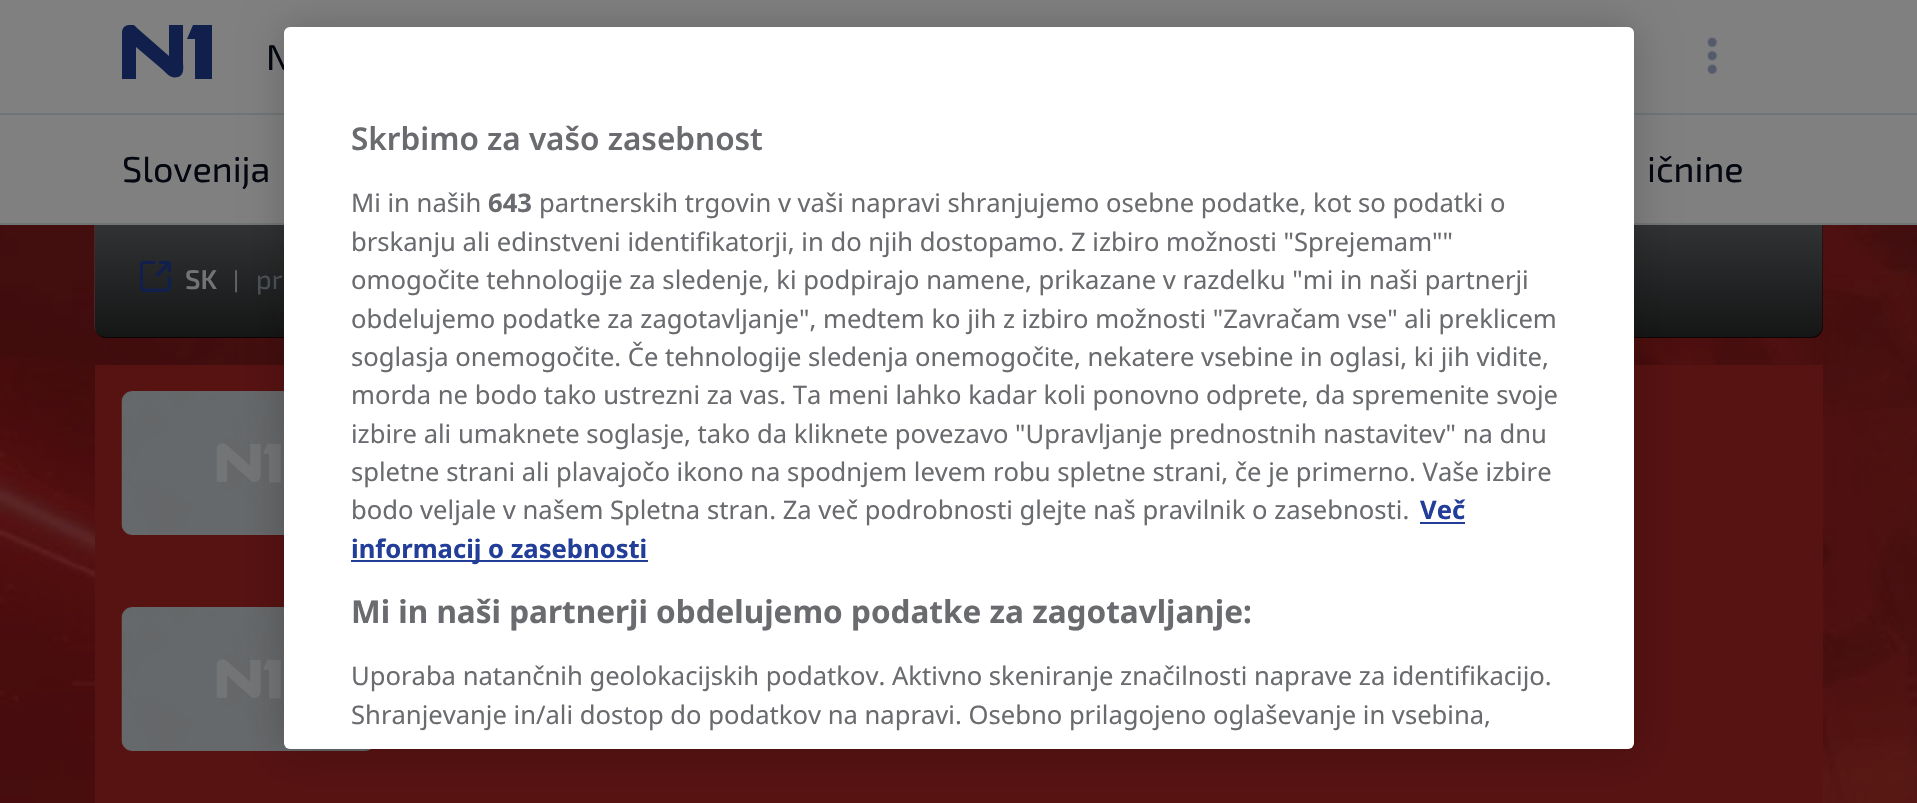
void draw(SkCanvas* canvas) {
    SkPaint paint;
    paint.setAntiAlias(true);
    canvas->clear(0xFFFFFFFF);
    canvas->drawImageRect(SkImages::DeferredFromEncodedData(SkData::MakeFromFileName("img2.png")), SkRect::MakeXYWH(0, 225, 1917, 578), SkSamplingOptions());
    canvas->drawImageRect(SkImages::DeferredFromEncodedData(SkData::MakeFromFileName("img3.png")), SkRect::MakeXYWH(94, 225, 1729, 112), SkSamplingOptions());
    {
        const SkColor colors[] = {0x00000000, 0xCC000000};
        const float stops[] = {0, 1};
        const SkPoint ends[] = {{959, 9}, {959, 338}};
        paint.setShader(SkGradientShader::MakeLinear(ends, colors, stops, 2, SkTileMode::kClamp));
        paint.setAlpha(255);
    }
    canvas->drawPath(SkPathBuilder().moveTo(95, 9).lineTo(1823, 9).lineTo(1823, 327).cubicTo(1823, 333, 1818, 338, 1812, 338).lineTo(106, 338).cubicTo(100, 338, 95, 333, 95, 327).close().detach(), paint);
    paint.setShader(nullptr);
    paint.setColor(0xFF808080);
    canvas->drawRect(SkRect::MakeXYWH(0, 0, 1917, 223), paint);
    paint.setColor(0xFF6F7477);
    canvas->drawRect(SkRect::MakeXYWH(0, 113, 1917, 2), paint);
    canvas->save();
    canvas->clipRect(SkRect::MakeXYWH(122, 25, 90, 54));
    paint.setColor(0xFF111F4D);
    canvas->drawPath(SkPathBuilder(SkPathFillType::kEvenOdd).moveTo(137, 28).lineTo(169, 56).lineTo(169, 25).lineTo(183, 25).lineTo(183, 61).cubicTo(183, 66, 185, 75, 178, 77).cubicTo(171, 79, 167, 74, 163, 70).lineTo(136, 47).lineTo(136, 79).lineTo(122, 79).lineTo(122, 42).cubicTo(122, 35, 120, 26, 129, 25).cubicTo(132, 24, 135, 25, 137, 28).close().moveTo(187, 39).lineTo(193, 25).lineTo(212, 25).lineTo(212, 79).lineTo(195, 79).lineTo(195, 39).close().detach(), paint);
    canvas->restore();
    SkFont font1(fontMgr->matchFamilyStyle("Exo 2", SkFontStyle::Normal()), 36);
    font1.setSubpixel(true);
    paint.setColor(0xFF040610);
    canvas->drawString("N", 266, 70, font1, paint);
    canvas->drawImageRect(SkImages::DeferredFromEncodedData(SkData::MakeFromFileName("img1.png")), SkRect::MakeXYWH(1707, 37, 11, 37), SkSamplingOptions());
    paint.setColor(0xFF6F7477);
    canvas->drawRect(SkRect::MakeXYWH(0, 223, 1917, 2), paint);
    paint.setColor(0xFF040610);
    canvas->drawString("Slovenija", 122, 182, font1, paint);
    canvas->drawString("ičnine", 1647, 182, font1, paint);
    canvas->drawImageRect(SkImages::DeferredFromEncodedData(SkData::MakeFromFileName("img4.png")), SkRect::MakeXYWH(139, 260, 32, 32), SkSamplingOptions());
    SkFont font2(fontMgr->matchFamilyStyle("Exo 2", SkFontStyle(600, SkFontStyle::kNormal_Width, SkFontStyle::kUpright_Slant)), 27);
    font2.setSubpixel(true);
    paint.setColor(0xFF737476);
    canvas->drawString("SK", 185, 289, font2, paint);
    SkFont font3(fontMgr->matchFamilyStyle("Noto Sans", SkFontStyle::Normal()), 22);
    font3.setSubpixel(true);
    paint.setColor(0xFF696B6E);
    canvas->drawString("|", 230, 287, font3, paint);
    SkFont font4(fontMgr->matchFamilyStyle("Exo 2", SkFontStyle::Normal()), 27);
    font4.setSubpixel(true);
    paint.setColor(0xFF4E5258);
    canvas->drawString("pr", 256, 289, font4, paint);
    paint.setColor(0xFF571212);
    canvas->drawRect(SkRect::MakeXYWH(95, 365, 1728, 438), paint);
    canvas->drawImageRect(SkImages::DeferredFromEncodedData(SkData::MakeFromFileName("img5.png")), SkRect::MakeXYWH(121, 391, 163, 144), SkSamplingOptions());
    canvas->drawImageRect(SkImages::DeferredFromEncodedData(SkData::MakeFromFileName("img6.png")), SkRect::MakeXYWH(121, 607, 250, 144), SkSamplingOptions());
    paint.setColor(0x33000000);
    paint.setMaskFilter(SkMaskFilter::MakeBlur(kNormal_SkBlurStyle, 20));
    canvas->drawRoundRect(SkRect::MakeXYWH(284, 27, 1350, 722), 6, 6, paint);
    paint.setMaskFilter(nullptr);
    paint.setColor(0xFFFFFFFF);
    canvas->drawRoundRect(SkRect::MakeXYWH(284, 27, 1350, 722), 6, 6, paint);
    SkFont font5(fontMgr->matchFamilyStyle("Noto Sans", SkFontStyle(600, SkFontStyle::kNormal_Width, SkFontStyle::kUpright_Slant)), 31.5f);
    font5.setSubpixel(true);
    paint.setColor(0xFF696B6E);
    canvas->drawString("Skrbimo za vašo zasebnost", 351, 150, font5, paint);
    SkFont font6(fontMgr->matchFamilyStyle("Noto Sans", SkFontStyle::Normal()), 25.6f);
    font6.setSubpixel(true);
    canvas->drawString("Mi in naših", 351, 212, font6, paint);
    SkFont font7(fontMgr->matchFamilyStyle("Noto Sans", SkFontStyle::Bold()), 25.6f);
    font7.setSubpixel(true);
    canvas->drawString("643", 488, 212, font7, paint);
    canvas->drawString("partnerskih trgovin v vaši napravi shranjujemo osebne podatke, kot so podatki o", 539, 212, font6, paint);
    canvas->drawString("brskanju ali edinstveni identifikatorji, in do njih dostopamo. Z izbiro možnosti \"Sprejemam\"\"", 351, 251, font6, paint);
    canvas->drawString("omogočite tehnologije za sledenje, ki podpirajo namene, prikazane v razdelku \"mi in naši partnerji", 351, 289, font6, paint);
    canvas->drawString("obdelujemo podatke za zagotavljanje\", medtem ko jih z izbiro možnosti \"Zavračam vse\" ali preklicem", 351, 328, font6, paint);
    canvas->drawString("soglasja onemogočite. Če tehnologije sledenja onemogočite, nekatere vsebine in oglasi, ki jih vidite,", 351, 366, font6, paint);
    canvas->drawString("morda ne bodo tako ustrezni za vas. Ta meni lahko kadar koli ponovno odprete, da spremenite svoje", 351, 404, font6, paint);
    canvas->drawString("izbire ali umaknete soglasje, tako da kliknete povezavo \"Upravljanje prednostnih nastavitev\" na dnu", 351, 443, font6, paint);
    canvas->drawString("spletne strani ali plavajočo ikono na spodnjem levem robu spletne strani, če je primerno. Vaše izbire", 351, 481, font6, paint);
    canvas->drawString("bodo veljale v našem Spletna stran. Za več podrobnosti glejte naš pravilnik o zasebnosti.", 351, 519, font6, paint);
    paint.setColor(0xFF223E99);
    canvas->drawString("Več", 1420, 519, font7, paint);
    canvas->drawRect(SkRect::MakeXYWH(1420, 522, 45, 2), paint);
    canvas->drawRect(SkRect::MakeXYWH(351, 560, 297, 2), paint);
    canvas->drawString("informacij o zasebnosti", 351, 558, font7, paint);
    SkFont font8(fontMgr->matchFamilyStyle("Noto Sans", SkFontStyle::Bold()), 31.5f);
    font8.setSubpixel(true);
    paint.setColor(0xFF696B6E);
    canvas->drawString("Mi in naši partnerji obdelujemo podatke za zagotavljanje:", 351, 623, font8, paint);
    canvas->drawString("Uporaba natančnih geolokacijskih podatkov. Aktivno skeniranje značilnosti naprave za identifikacijo.", 351, 685, font6, paint);
    canvas->drawString("Shranjevanje in/ali dostop do podatkov na napravi. Osebno prilagojeno oglaševanje in vsebina,", 351, 724, font6, paint);
}
